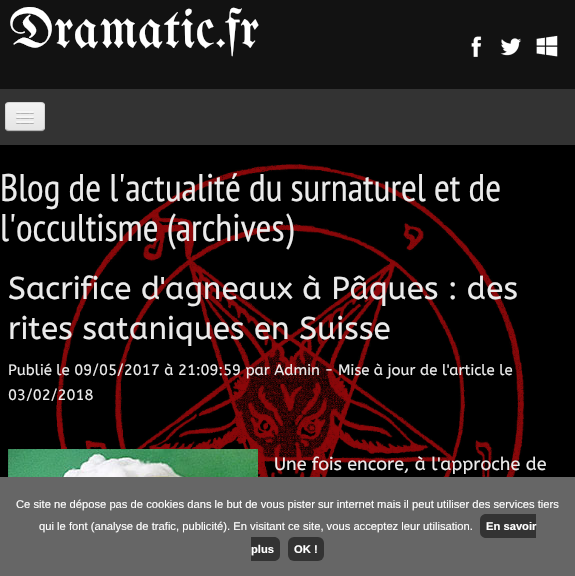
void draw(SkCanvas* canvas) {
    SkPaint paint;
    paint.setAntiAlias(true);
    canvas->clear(0xFF121212);
    SkFont font1(fontMgr->matchFamilyStyle("UnifrakturMaguntia", SkFontStyle::Normal()), 55);
    font1.setSubpixel(true);
    paint.setColor(0xFFFFFFFF);
    canvas->drawString("Dramatic.fr", 9, 47, font1, paint);
    canvas->drawImageRect(SkImages::DeferredFromEncodedData(SkData::MakeFromFileName("img1.png")), SkRect::MakeXYWH(471, 36, 11, 21), SkSamplingOptions());
    canvas->drawImageRect(SkImages::DeferredFromEncodedData(SkData::MakeFromFileName("img2.png")), SkRect::MakeXYWH(500, 38, 22, 18), SkSamplingOptions());
    canvas->drawImageRect(SkImages::DeferredFromEncodedData(SkData::MakeFromFileName("img3.png")), SkRect::MakeXYWH(536, 35, 22, 22), SkSamplingOptions());
    paint.setColor(0xFF333333);
    canvas->drawRect(SkRect::MakeXYWH(0, 89, 575, 56), paint);
    paint.setColor(0xFF424242);
    canvas->drawPath(SkPathBuilder().moveTo(5, 127).cubicTo(5, 133, 10, 132, 14, 132).lineTo(36, 132).cubicTo(40, 132, 45, 133, 45, 127).cubicTo(45, 129, 43, 131, 41, 131).lineTo(9, 131).cubicTo(7, 131, 5, 129, 5, 127).close().detach(), paint);
    paint.setColor(0xFFEDEDED);
    canvas->drawRoundRect(SkRect::MakeXYWH(5, 102, 40, 29), 4, 4, paint);
    canvas->save();
    canvas->clipPath(SkPathBuilder().moveTo(9, 102).lineTo(41, 102).cubicTo(43, 102, 45, 104, 45, 106).lineTo(45, 127).cubicTo(45, 129, 43, 131, 41, 131).lineTo(9, 131).cubicTo(7, 131, 5, 129, 5, 127).lineTo(5, 106).cubicTo(5, 104, 7, 102, 9, 102).close().detach(), true);
    {
        const SkColor colors[] = {0xFFF2F2F2, 0xFFE5E5E5};
        const float stops[] = {0, 1};
        const SkPoint ends[] = {{25, 103}, {25, 130}};
        paint.setShader(SkGradientShader::MakeLinear(ends, colors, stops, 2, SkTileMode::kClamp));
        paint.setAlpha(255);
    }
    canvas->drawRect(SkRect::MakeXYWH(5, 103, 40, 27), paint);
    canvas->restore();
    paint.setStyle(SkPaint::kStroke_Style);
    paint.setStrokeWidth(1);
    paint.setShader(nullptr);
    paint.setColor(0x40000000);
    canvas->drawPath(SkPathBuilder().moveTo(43.5f, 129.5f).cubicTo(43, 130, 42, 130.5f, 41, 130.5f).lineTo(9, 130.5f).cubicTo(8, 130.5f, 7, 130, 6.5f, 129.5f).detach(), paint);
    paint.setColor(0x1A000000);
    canvas->drawPath(SkPathBuilder().moveTo(6.5f, 129.5f).cubicTo(6, 129, 5.5f, 128, 5.5f, 127).lineTo(5.5f, 106).cubicTo(5.5f, 105, 6, 104, 6.5f, 103.5f).cubicTo(7, 103, 8, 102.5f, 9, 102.5f).lineTo(41, 102.5f).cubicTo(42, 102.5f, 43, 103, 43.5f, 103.5f).cubicTo(44, 104, 44.5f, 105, 44.5f, 106).lineTo(44.5f, 127).cubicTo(44.5f, 128, 44, 129, 43.5f, 129.5f).detach(), paint);
    paint.setStyle(SkPaint::kFill_Style);
    paint.setColor(0xFFB2B2B2);
    canvas->drawPath(SkPathBuilder().moveTo(16, 112.5f).cubicTo(15, 114.5f, 19.5f, 114, 19.5f, 114).lineTo(30.5f, 114).cubicTo(30.5f, 114, 35, 114.5f, 34, 112.5f).cubicTo(33, 113.5f, 26.5f, 113, 25, 113).cubicTo(23.5f, 113, 17, 113.5f, 16, 112.5f).close().detach(), paint);
    paint.setColor(0xFFF5F5F5);
    canvas->drawRoundRect(SkRect::MakeXYWH(16, 111, 18, 2), 1, 1, paint);
    paint.setColor(0xFFB0B0B0);
    canvas->drawPath(SkPathBuilder().moveTo(16, 117.5f).cubicTo(15, 119.5f, 19.5f, 119, 19.5f, 119).lineTo(30.5f, 119).cubicTo(30.5f, 119, 35, 119.5f, 34, 117.5f).cubicTo(33, 118.5f, 26.5f, 118, 25, 118).cubicTo(23.5f, 118, 17, 118.5f, 16, 117.5f).close().detach(), paint);
    paint.setColor(0xFFF5F5F5);
    canvas->drawRoundRect(SkRect::MakeXYWH(16, 116, 18, 2), 1, 1, paint);
    paint.setColor(0xFFAEAEAE);
    canvas->drawPath(SkPathBuilder().moveTo(16, 122.5f).cubicTo(15, 124.5f, 19.5f, 124, 19.5f, 124).lineTo(30.5f, 124).cubicTo(30.5f, 124, 35, 124.5f, 34, 122.5f).cubicTo(33, 123.5f, 26.5f, 123, 25, 123).cubicTo(23.5f, 123, 17, 123.5f, 16, 122.5f).close().detach(), paint);
    paint.setColor(0xFFF5F5F5);
    canvas->drawRoundRect(SkRect::MakeXYWH(16, 121, 18, 2), 1, 1, paint);
    paint.setColor(0xFF000000);
    canvas->drawRect(SkRect::MakeXYWH(0, 145, 575, 332), paint);
    canvas->drawImageRect(SkImages::DeferredFromEncodedData(SkData::MakeFromFileName("img4.png")), SkRect::MakeXYWH(56, 164, 469, 313), SkSamplingOptions());
    SkFont font2(fontMgr->matchFamilyStyle("PT Sans Narrow", SkFontStyle::Normal()), 38.5f);
    font2.setSubpixel(true);
    paint.setColor(0xFFEBEBEB);
    canvas->drawString("Blog de l'actualité du surnaturel et de", 0, 201, font2, paint);
    canvas->drawString("l'occultisme (archives)", 0, 241, font2, paint);
    SkFont font3(fontMgr->matchFamilyStyle("ABeeZee", SkFontStyle::Normal()), 31.5f);
    font3.setSubpixel(true);
    canvas->drawString("Sacrifice d'agneaux à Pâques : des", 8, 299, font3, paint);
    canvas->drawString("rites sataniques en Suisse", 8, 339, font3, paint);
    SkFont font4(fontMgr->matchFamilyStyle("ABeeZee", SkFontStyle::Normal()), 15);
    font4.setSubpixel(true);
    canvas->drawString("Publié le 09/05/2017 à 21:09:59 par Admin - Mise à jour de l'article le", 8, 375, font4, paint);
    canvas->drawString("03/02/2018", 8, 400, font4, paint);
    canvas->drawImageRect(SkImages::DeferredFromEncodedData(SkData::MakeFromFileName("img5.png")), SkRect::MakeXYWH(8, 449, 250, 28), SkSamplingOptions());
    SkFont font5(fontMgr->matchFamilyStyle("ABeeZee", SkFontStyle::Normal()), 18);
    font5.setSubpixel(true);
    canvas->drawString("Une fois encore, à l'approche de", 274, 470, font5, paint);
    paint.setColor(0xFF666666);
    canvas->drawRect(SkRect::MakeXYWH(0, 477, 575, 99), paint);
    SkFont font6(fontMgr->matchFamilyStyle("Liberation Sans", SkFontStyle::Normal()), 11.2f);
    font6.setSubpixel(true);
    paint.setColor(0xFFFFFFFF);
    canvas->drawString("Ce site ne dépose pas de cookies dans le but de vous pister sur internet mais il peut utiliser des services tiers", 16, 508, font6, paint);
    canvas->drawString("qui le font (analyse de trafic, publicité). En visitant ce site, vous acceptez leur utilisation.", 39, 530, font6, paint);
    paint.setColor(0xFF333333);
    canvas->drawPath(SkPathBuilder().moveTo(486, 514).lineTo(536, 514).lineTo(536, 538).lineTo(486, 538).cubicTo(482.5f, 538, 480, 535.5f, 480, 532).lineTo(480, 520).cubicTo(480, 516.5f, 482.5f, 514, 486, 514).close().detach(), paint);
    SkFont font7(fontMgr->matchFamilyStyle("Liberation Sans", SkFontStyle::Bold()), 11.2f);
    font7.setSubpixel(true);
    paint.setColor(0xFFFFFFFF);
    canvas->drawString("En savoir", 486, 530, font7, paint);
    paint.setColor(0xFF333333);
    canvas->drawPath(SkPathBuilder().moveTo(251, 537).lineTo(274, 537).cubicTo(277.5f, 537, 280, 539.5f, 280, 543).lineTo(280, 555).cubicTo(280, 558.5f, 277.5f, 561, 274, 561).lineTo(251, 561).close().detach(), paint);
    paint.setColor(0xFFFFFFFF);
    canvas->drawString("plus", 251, 553, font7, paint);
    paint.setColor(0xFF333333);
    canvas->drawRoundRect(SkRect::MakeXYWH(288, 537, 36, 24), 6, 6, paint);
    paint.setColor(0xFFFFFFFF);
    canvas->drawString("OK !", 294, 553, font7, paint);
}
